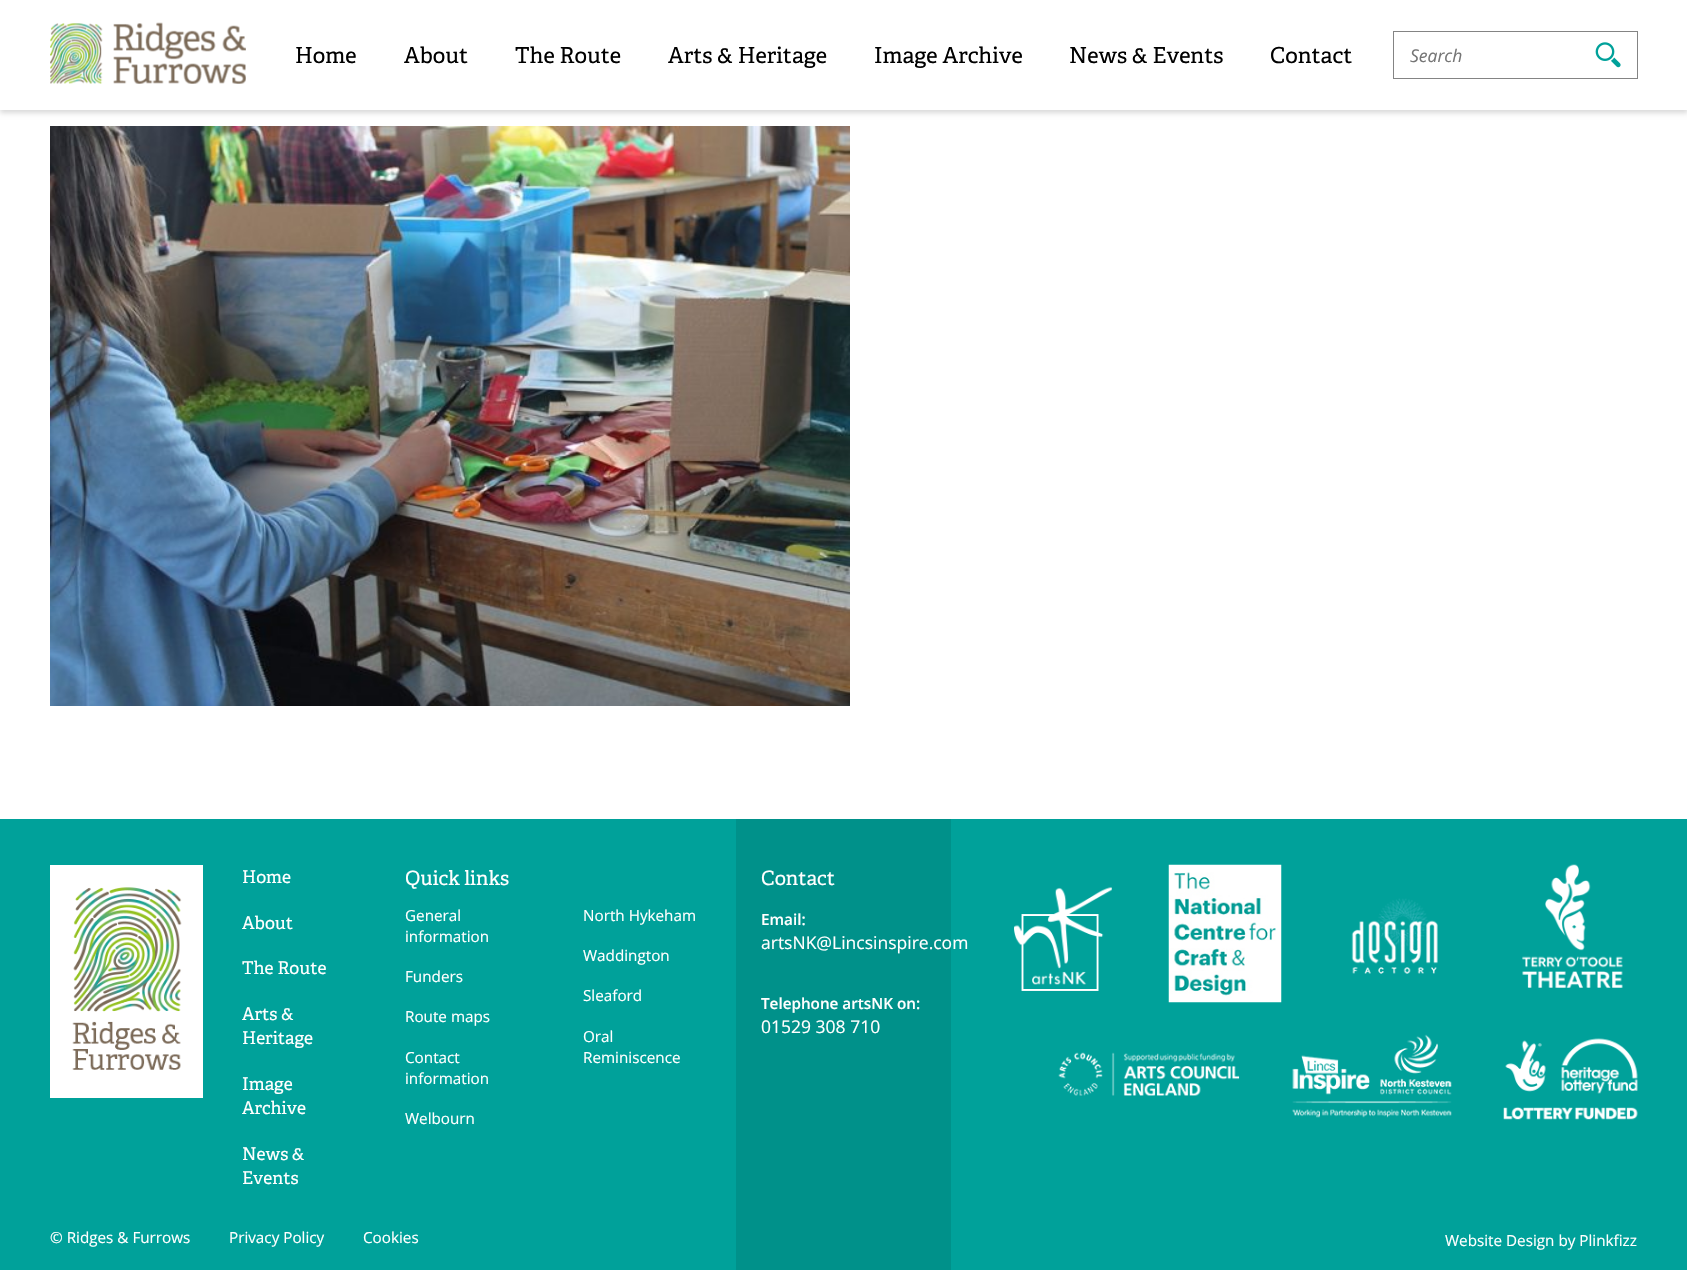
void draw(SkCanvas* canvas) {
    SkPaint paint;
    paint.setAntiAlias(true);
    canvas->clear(0xFFFFFFFF);
    paint.setColor(0x26000000);
    paint.setMaskFilter(SkMaskFilter::MakeBlur(kNormal_SkBlurStyle, 2.5f));
    canvas->drawRect(SkRect::MakeXYWH(0, 3, 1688, 110), paint);
    paint.setMaskFilter(nullptr);
    paint.setColor(0xFFFFFFFF);
    canvas->drawRect(SkRect::MakeXYWH(0, 0, 1687, 110), paint);
    canvas->drawImageRect(SkImages::DeferredFromEncodedData(SkData::MakeFromFileName("img1.png")), SkRect::MakeXYWH(50, 22, 196, 62), SkSamplingOptions());
    SkFont font1(fontMgr->matchFamilyStyle("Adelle", SkFontStyle::Normal()), 22);
    font1.setSubpixel(true);
    paint.setColor(0xFF000000);
    canvas->drawString("Home", 295, 63, font1, paint);
    canvas->drawString("About", 404, 63, font1, paint);
    canvas->drawString("The Route", 515, 63, font1, paint);
    canvas->drawString("Arts & Heritage", 668, 63, font1, paint);
    canvas->drawString("Image Archive", 874, 63, font1, paint);
    canvas->drawString("News & Events", 1069, 63, font1, paint);
    canvas->drawString("Contact", 1270, 63, font1, paint);
    paint.setStyle(SkPaint::kStroke_Style);
    paint.setStrokeWidth(1);
    paint.setColor(0xFF848484);
    canvas->drawRect(SkRect::MakeXYWH(1393.5f, 31.5f, 244, 47), paint);
    SkFont font2(fontMgr->matchFamilyStyle("Open Sans", SkFontStyle::Italic()), 17.5f);
    font2.setSubpixel(true);
    paint.setStyle(SkPaint::kFill_Style);
    paint.setColor(0xFF757575);
    canvas->drawString("Search", 1410, 62, font2, paint);
    canvas->drawImageRect(SkImages::DeferredFromEncodedData(SkData::MakeFromFileName("img2.png")), SkRect::MakeXYWH(1595, 42, 26, 26), SkSamplingOptions());
    canvas->drawImageRect(SkImages::DeferredFromEncodedData(SkData::MakeFromFileName("img3.png")), SkRect::MakeXYWH(50, 126, 800, 580), SkSamplingOptions());
    paint.setColor(0xFF00A19A);
    canvas->drawRect(SkRect::MakeXYWH(0, 819, 1687, 451), paint);
    paint.setColor(0xFFFFFFFF);
    canvas->drawRect(SkRect::MakeXYWH(50, 865, 153, 233), paint);
    canvas->drawImageRect(SkImages::DeferredFromEncodedData(SkData::MakeFromFileName("img4.png")), SkRect::MakeXYWH(72, 887, 110, 183), SkSamplingOptions());
    SkFont font3(fontMgr->matchFamilyStyle("Adelle", SkFontStyle::Normal()), 17.5f);
    font3.setSubpixel(true);
    canvas->drawString("Home", 242, 883, font3, paint);
    canvas->drawString("About", 242, 929, font3, paint);
    canvas->drawString("The Route", 242, 974, font3, paint);
    canvas->drawString("Arts &", 242, 1020, font3, paint);
    canvas->drawString("Heritage", 242, 1044, font3, paint);
    canvas->drawString("Image", 242, 1090, font3, paint);
    canvas->drawString("Archive", 242, 1114, font3, paint);
    canvas->drawString("News &", 242, 1160, font3, paint);
    canvas->drawString("Events", 242, 1184, font3, paint);
    SkFont font4(fontMgr->matchFamilyStyle("Adelle", SkFontStyle::Normal()), 19.75f);
    font4.setSubpixel(true);
    canvas->drawString("Quick links", 405, 885, font4, paint);
    SkFont font5(fontMgr->matchFamilyStyle("Open Sans", SkFontStyle::Normal()), 15.25f);
    font5.setSubpixel(true);
    canvas->drawString("General", 405, 921, font5, paint);
    canvas->drawString("information", 405, 942, font5, paint);
    canvas->drawString("Funders", 405, 982, font5, paint);
    canvas->drawString("Route maps", 405, 1022, font5, paint);
    canvas->drawString("Contact", 405, 1063, font5, paint);
    canvas->drawString("information", 405, 1084, font5, paint);
    canvas->drawString("Welbourn", 405, 1124, font5, paint);
    canvas->drawString("North Hykeham", 583, 921, font5, paint);
    canvas->drawString("Waddington", 583, 961, font5, paint);
    canvas->drawString("Sleaford", 583, 1001, font5, paint);
    canvas->drawString("Oral", 583, 1042, font5, paint);
    canvas->drawString("Reminiscence", 583, 1063, font5, paint);
    paint.setColor(0xFF00918A);
    canvas->drawRect(SkRect::MakeXYWH(736, 819, 215, 451), paint);
    paint.setColor(0xFFFFFFFF);
    canvas->drawString("Contact", 761, 885, font4, paint);
    SkFont font6(fontMgr->matchFamilyStyle("Open Sans", SkFontStyle(600, SkFontStyle::kNormal_Width, SkFontStyle::kUpright_Slant)), 15.25f);
    font6.setSubpixel(true);
    canvas->drawString("Email:", 761, 925, font6, paint);
    SkFont font7(fontMgr->matchFamilyStyle("Open Sans", SkFontStyle::Normal()), 17.5f);
    font7.setSubpixel(true);
    canvas->drawString("artsNK@Lincsinspire.com", 761, 949, font7, paint);
    canvas->drawString("Telephone artsNK on:", 761, 1009, font6, paint);
    canvas->drawString("01529 308 710", 761, 1033, font7, paint);
    canvas->drawImageRect(SkImages::DeferredFromEncodedData(SkData::MakeFromFileName("img5.png")), SkRect::MakeXYWH(1014, 887, 98, 104), SkSamplingOptions());
    canvas->drawImageRect(SkImages::DeferredFromEncodedData(SkData::MakeFromFileName("img6.png")), SkRect::MakeXYWH(1168, 864, 114, 139), SkSamplingOptions());
    canvas->drawImageRect(SkImages::DeferredFromEncodedData(SkData::MakeFromFileName("img7.png")), SkRect::MakeXYWH(1351, 898, 87, 76), SkSamplingOptions());
    canvas->drawImageRect(SkImages::DeferredFromEncodedData(SkData::MakeFromFileName("img8.png")), SkRect::MakeXYWH(1522, 864, 101, 124), SkSamplingOptions());
    canvas->drawImageRect(SkImages::DeferredFromEncodedData(SkData::MakeFromFileName("img9.png")), SkRect::MakeXYWH(1058, 1052, 182, 44), SkSamplingOptions());
    canvas->drawImageRect(SkImages::DeferredFromEncodedData(SkData::MakeFromFileName("img10.png")), SkRect::MakeXYWH(1292, 1034, 160, 84), SkSamplingOptions());
    canvas->drawImageRect(SkImages::DeferredFromEncodedData(SkData::MakeFromFileName("img11.png")), SkRect::MakeXYWH(1503, 1038, 135, 82), SkSamplingOptions());
    canvas->drawString("© Ridges & Furrows", 50, 1243, font5, paint);
    canvas->drawString("Privacy Policy", 229, 1243, font5, paint);
    canvas->drawString("Cookies", 363, 1243, font5, paint);
    canvas->drawString("Website Design by Plinkfizz", 1445, 1246, font5, paint);
}
